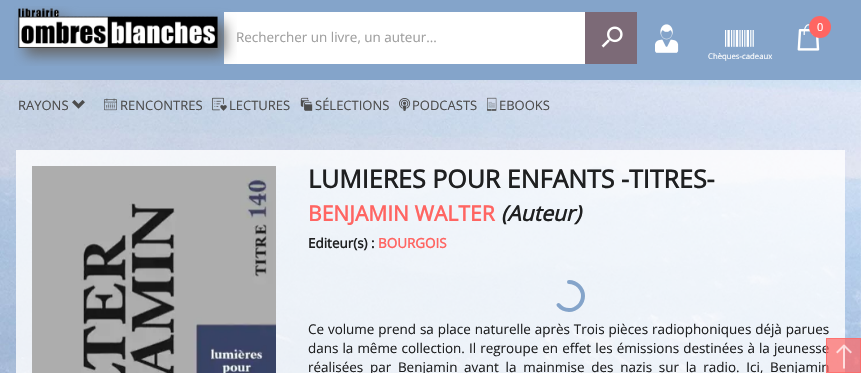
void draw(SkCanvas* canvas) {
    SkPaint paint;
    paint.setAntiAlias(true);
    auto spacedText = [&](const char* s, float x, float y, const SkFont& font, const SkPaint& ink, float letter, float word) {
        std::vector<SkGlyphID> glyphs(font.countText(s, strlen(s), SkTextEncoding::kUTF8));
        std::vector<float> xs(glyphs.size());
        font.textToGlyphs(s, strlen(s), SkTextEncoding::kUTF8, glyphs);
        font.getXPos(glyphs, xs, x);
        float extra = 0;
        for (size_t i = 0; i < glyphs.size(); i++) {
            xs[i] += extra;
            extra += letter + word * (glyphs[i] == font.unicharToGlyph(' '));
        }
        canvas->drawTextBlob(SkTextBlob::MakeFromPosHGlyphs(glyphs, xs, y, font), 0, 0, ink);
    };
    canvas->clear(0xFFFFFFFF);
    canvas->drawImageRect(SkImages::DeferredFromEncodedData(SkData::MakeFromFileName("img1.png")), SkRect::MakeXYWH(0, 80, 861, 293), SkSamplingOptions());
    paint.setColor(0xFF84A4CA);
    canvas->drawRect(SkRect::MakeXYWH(0, 0, 861, 80), paint);
    paint.setColor(0xFFFFFFFF);
    canvas->drawRect(SkRect::MakeXYWH(224, 12, 361, 52), paint);
    canvas->drawImageRect(SkImages::DeferredFromEncodedData(SkData::MakeFromFileName("img2.png")), SkRect::MakeXYWH(14, 6, 223, 60), SkSamplingOptions());
    SkFont font1(fontMgr->matchFamilyStyle("Open Sans", SkFontStyle::Normal()), 13.45f);
    font1.setSubpixel(true);
    paint.setColor(0xFF9E9E9E);
    canvas->drawString("Rechercher un livre, un auteur...", 236, 42, font1, paint);
    paint.setColor(0xFF7C6A77);
    canvas->drawRect(SkRect::MakeXYWH(585, 12, 52, 52), paint);
    canvas->drawImageRect(SkImages::DeferredFromEncodedData(SkData::MakeFromFileName("img3.png")), SkRect::MakeXYWH(601, 26, 22, 22), SkSamplingOptions());
    canvas->drawImageRect(SkImages::DeferredFromEncodedData(SkData::MakeFromFileName("img4.png")), SkRect::MakeXYWH(655, 24, 24, 29), SkSamplingOptions());
    canvas->drawImageRect(SkImages::DeferredFromEncodedData(SkData::MakeFromFileName("img5.png")), SkRect::MakeXYWH(797, 24, 23, 27), SkSamplingOptions());
    paint.setColor(0xFFFF6562);
    canvas->drawCircle(820, 27, 11, paint);
    SkFont font2(fontMgr->matchFamilyStyle("Open Sans", SkFontStyle::Normal()), 11);
    font2.setSubpixel(true);
    paint.setColor(0xFFFFFFFF);
    canvas->drawString("0", 817, 31, font2, paint);
    canvas->drawImageRect(SkImages::DeferredFromEncodedData(SkData::MakeFromFileName("img6.png")), SkRect::MakeXYWH(725, 30, 29, 17), SkSamplingOptions());
    SkFont font3(fontMgr->matchFamilyStyle("Open Sans", SkFontStyle::Normal()), 7.75f);
    font3.setSubpixel(true);
    canvas->drawString("Chèques-cadeaux", 708, 59, font3, paint);
    SkFont font4(fontMgr->matchFamilyStyle("Open Sans", SkFontStyle::Normal()), 13);
    font4.setSubpixel(true);
    paint.setColor(0xFF4D4D4D);
    canvas->drawString("RAYONS", 18, 110, font4, paint);
    canvas->drawImageRect(SkImages::DeferredFromEncodedData(SkData::MakeFromFileName("img7.png")), SkRect::MakeXYWH(72, 100, 13, 9), SkSamplingOptions());
    canvas->drawImageRect(SkImages::DeferredFromEncodedData(SkData::MakeFromFileName("img8.png")), SkRect::MakeXYWH(104, 98, 13, 13), SkSamplingOptions());
    canvas->drawString("RENCONTRES", 120, 110, font4, paint);
    canvas->drawImageRect(SkImages::DeferredFromEncodedData(SkData::MakeFromFileName("img9.png")), SkRect::MakeXYWH(212, 97, 15, 14), SkSamplingOptions());
    canvas->drawString("LECTURES", 229, 110, font4, paint);
    canvas->drawImageRect(SkImages::DeferredFromEncodedData(SkData::MakeFromFileName("img10.png")), SkRect::MakeXYWH(300, 97, 13, 14), SkSamplingOptions());
    canvas->drawString("SÉLECTIONS", 315, 110, font4, paint);
    canvas->drawImageRect(SkImages::DeferredFromEncodedData(SkData::MakeFromFileName("img11.png")), SkRect::MakeXYWH(399, 98, 12, 13), SkSamplingOptions());
    canvas->drawString("PODCASTS", 412, 110, font4, paint);
    canvas->drawImageRect(SkImages::DeferredFromEncodedData(SkData::MakeFromFileName("img12.png")), SkRect::MakeXYWH(487, 97, 10, 14), SkSamplingOptions());
    canvas->drawString("EBOOKS", 499, 110, font4, paint);
    paint.setColor(0xCCFFFFFF);
    canvas->drawRect(SkRect::MakeXYWH(16, 150, 829, 223), paint);
    canvas->drawImageRect(SkImages::DeferredFromEncodedData(SkData::MakeFromFileName("img13.png")), SkRect::MakeXYWH(32, 166, 244, 207), SkSamplingOptions());
    SkFont font5(fontMgr->matchFamilyStyle("Open Sans", SkFontStyle::Bold()), 25);
    font5.setSubpixel(true);
    paint.setColor(0xFF1F2021);
    canvas->drawString("LUMIERES POUR ENFANTS", 308, 188, font5, paint);
    canvas->drawString("-TITRES-", 621, 188, font5, paint);
    SkFont font6(fontMgr->matchFamilyStyle("Open Sans", SkFontStyle::Bold()), 21.1f);
    font6.setSubpixel(true);
    paint.setColor(0xFFFF6562);
    canvas->drawString("BENJAMIN WALTER", 308, 221, font6, paint);
    SkFont font7(fontMgr->matchFamilyStyle("Open Sans", SkFontStyle::BoldItalic()), 21.1f);
    font7.setSubpixel(true);
    paint.setColor(0xFF1F2021);
    canvas->drawString("(Auteur)", 501, 221, font7, paint);
    SkFont font8(fontMgr->matchFamilyStyle("Open Sans", SkFontStyle::Bold()), 13.45f);
    font8.setSubpixel(true);
    canvas->drawString("Editeur(s) :", 308, 248, font8, paint);
    paint.setColor(0xFFFF6562);
    canvas->drawString("BOURGOIS", 378, 248, font8, paint);
    paint.setStyle(SkPaint::kStroke_Style);
    paint.setStrokeWidth(4);
    paint.setStrokeCap(SkPaint::kRound_Cap);
    paint.setColor(0xFF84A4CA);
    canvas->drawPath(SkPathBuilder().moveTo(569, 282).cubicTo(576.5f, 282, 583, 288.5f, 583, 296).cubicTo(583, 303.5f, 576.5f, 310, 569, 310).cubicTo(565, 310, 561, 308, 558.5f, 305).detach(), paint);
    paint.setStyle(SkPaint::kFill_Style);
    paint.setColor(0xFF1F2021);
    spacedText("Ce volume prend sa place naturelle après Trois pièces radiophoniques déjà parues", 308, 334, font1, paint, 0, 0.4f);
    spacedText("dans la même collection. Il regroupe en effet les émissions destinées à la jeunesse", 308, 353, font1, paint, 0, 0.6f);
    spacedText("réalisées par Benjamin avant la mainmise des nazis sur la radio. Ici, Benjamin", 308, 372, font1, paint, 0, 3.25f);
    paint.setColor(0xB3FF6562);
    canvas->drawRect(SkRect::MakeXYWH(826, 338, 35, 35), paint);
    paint.setStyle(SkPaint::kStroke_Style);
    paint.setStrokeWidth(1);
    paint.setStrokeCap(SkPaint::kButt_Cap);
    canvas->drawRect(SkRect::MakeXYWH(826.5f, 338.5f, 34, 34), paint);
    canvas->drawImageRect(SkImages::DeferredFromEncodedData(SkData::MakeFromFileName("img14.png")), SkRect::MakeXYWH(836, 344, 16, 25), SkSamplingOptions());
}
